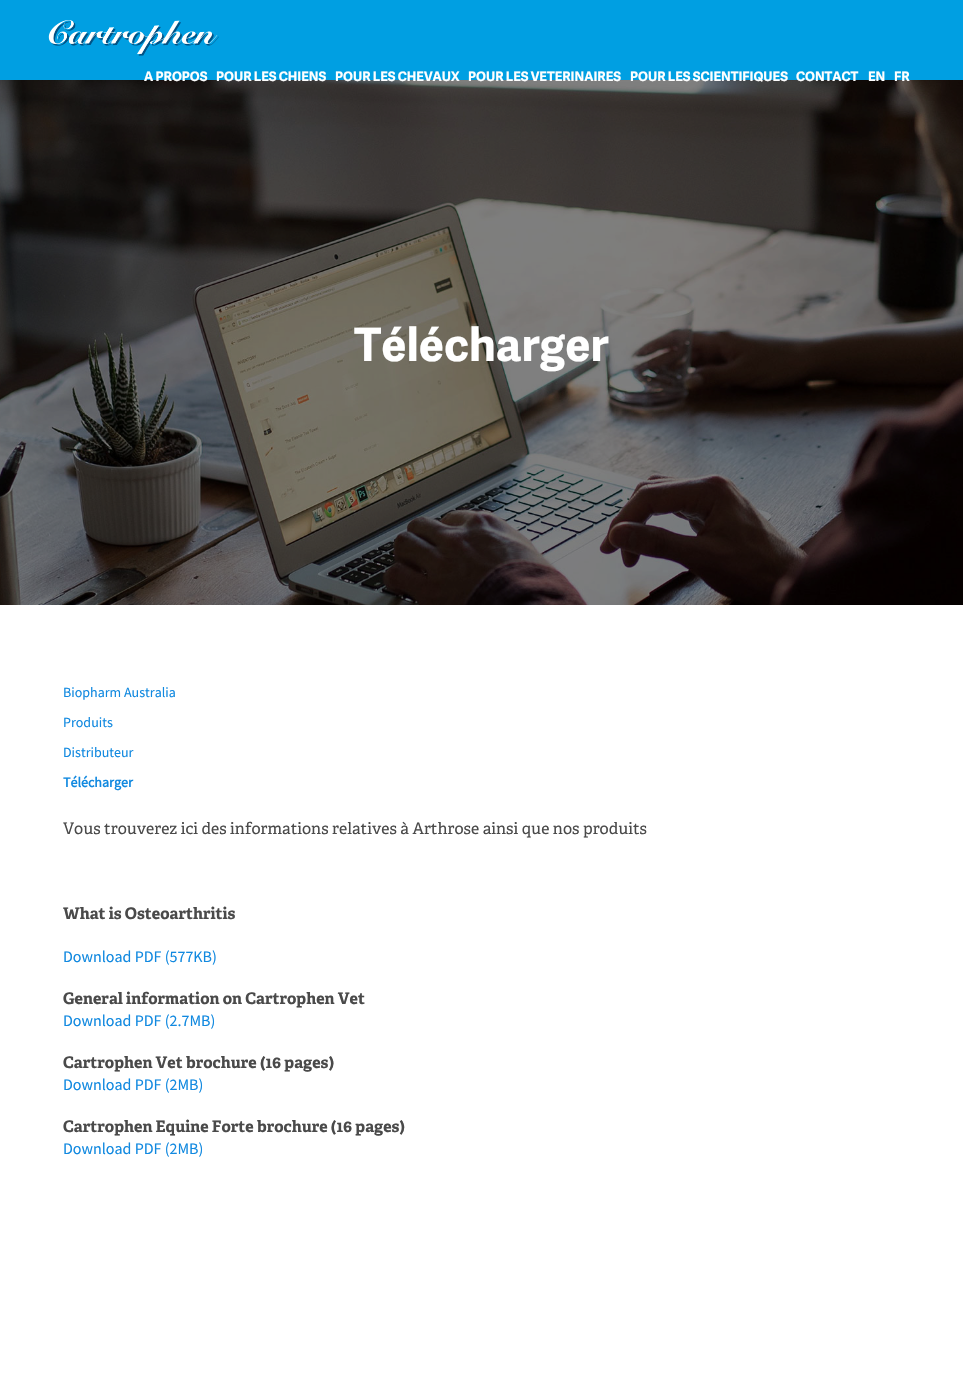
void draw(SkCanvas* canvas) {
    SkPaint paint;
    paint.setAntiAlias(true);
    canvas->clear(0xFFFFFFFF);
    paint.setColor(0xFF009FE2);
    canvas->drawRect(SkRect::MakeXYWH(0, 0, 963, 80), paint);
    canvas->drawImageRect(SkImages::DeferredFromEncodedData(SkData::MakeFromFileName("img1.png")), SkRect::MakeXYWH(48, 20, 171, 36), SkSamplingOptions());
    canvas->drawImageRect(SkImages::DeferredFromEncodedData(SkData::MakeFromFileName("img2.png")), SkRect::MakeXYWH(0, 80, 963, 525), SkSamplingOptions());
    SkFont font1(fontMgr->matchFamilyStyle("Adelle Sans", SkFontStyle::Bold()), 13);
    font1.setSubpixel(true);
    paint.setColor(0xFFFFFFFF);
    canvas->drawString("A PROPOS", 144, 81, font1, paint);
    canvas->drawString("POUR LES CHIENS", 216, 81, font1, paint);
    canvas->drawString("POUR LES CHEVAUX", 335, 81, font1, paint);
    canvas->drawString("POUR LES VETERINAIRES", 468, 81, font1, paint);
    canvas->drawString("POUR LES SCIENTIFIQUES", 630, 81, font1, paint);
    canvas->drawString("CONTACT", 796, 81, font1, paint);
    canvas->drawString("EN", 868, 81, font1, paint);
    canvas->drawString("FR", 894, 81, font1, paint);
    SkFont font2(fontMgr->matchFamilyStyle("Adelle Sans", SkFontStyle::Bold()), 46);
    font2.setSubpixel(true);
    canvas->drawString("Télécharger", 354, 361, font2, paint);
    SkFont font3(fontMgr->matchFamilyStyle("Source Sans Pro", SkFontStyle::Normal()), 14);
    font3.setSubpixel(true);
    paint.setColor(0xFF1189E0);
    canvas->drawString("Biopharm Australia", 63, 697, font3, paint);
    canvas->drawString("Produits", 63, 727, font3, paint);
    canvas->drawString("Distributeur", 63, 757, font3, paint);
    SkFont font4(fontMgr->matchFamilyStyle("Source Sans Pro", SkFontStyle::Bold()), 14);
    font4.setSubpixel(true);
    canvas->drawString("Télécharger", 63, 787, font4, paint);
    SkFont font5(fontMgr->matchFamilyStyle("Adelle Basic", SkFontStyle::Normal()), 16);
    font5.setSubpixel(true);
    paint.setColor(0xFF4A4A4A);
    canvas->drawString("Vous trouverez ici des informations relatives à Arthrose ainsi que nos produits", 63, 834, font5, paint);
    SkFont font6(fontMgr->matchFamilyStyle("Adelle Basic", SkFontStyle::Bold()), 16);
    font6.setSubpixel(true);
    canvas->drawString("What is Osteoarthritis", 63, 919, font6, paint);
    SkFont font7(fontMgr->matchFamilyStyle("Source Sans Pro", SkFontStyle::Normal()), 16);
    font7.setSubpixel(true);
    paint.setColor(0xFF1189E0);
    canvas->drawString("Download PDF (577KB)", 63, 962, font7, paint);
    paint.setColor(0xFF4A4A4A);
    canvas->drawString("General information on Cartrophen Vet", 63, 1004, font6, paint);
    paint.setColor(0xFF1189E0);
    canvas->drawString("Download PDF (2.7MB)", 63, 1026, font7, paint);
    paint.setColor(0xFF4A4A4A);
    canvas->drawString("Cartrophen Vet brochure (16 pages)", 63, 1068, font6, paint);
    paint.setColor(0xFF1189E0);
    canvas->drawString("Download PDF (2MB)", 63, 1090, font7, paint);
    paint.setColor(0xFF4A4A4A);
    canvas->drawString("Cartrophen Equine Forte brochure (16 pages)", 63, 1132, font6, paint);
    paint.setColor(0xFF1189E0);
    canvas->drawString("Download PDF (2MB)", 63, 1154, font7, paint);
}
